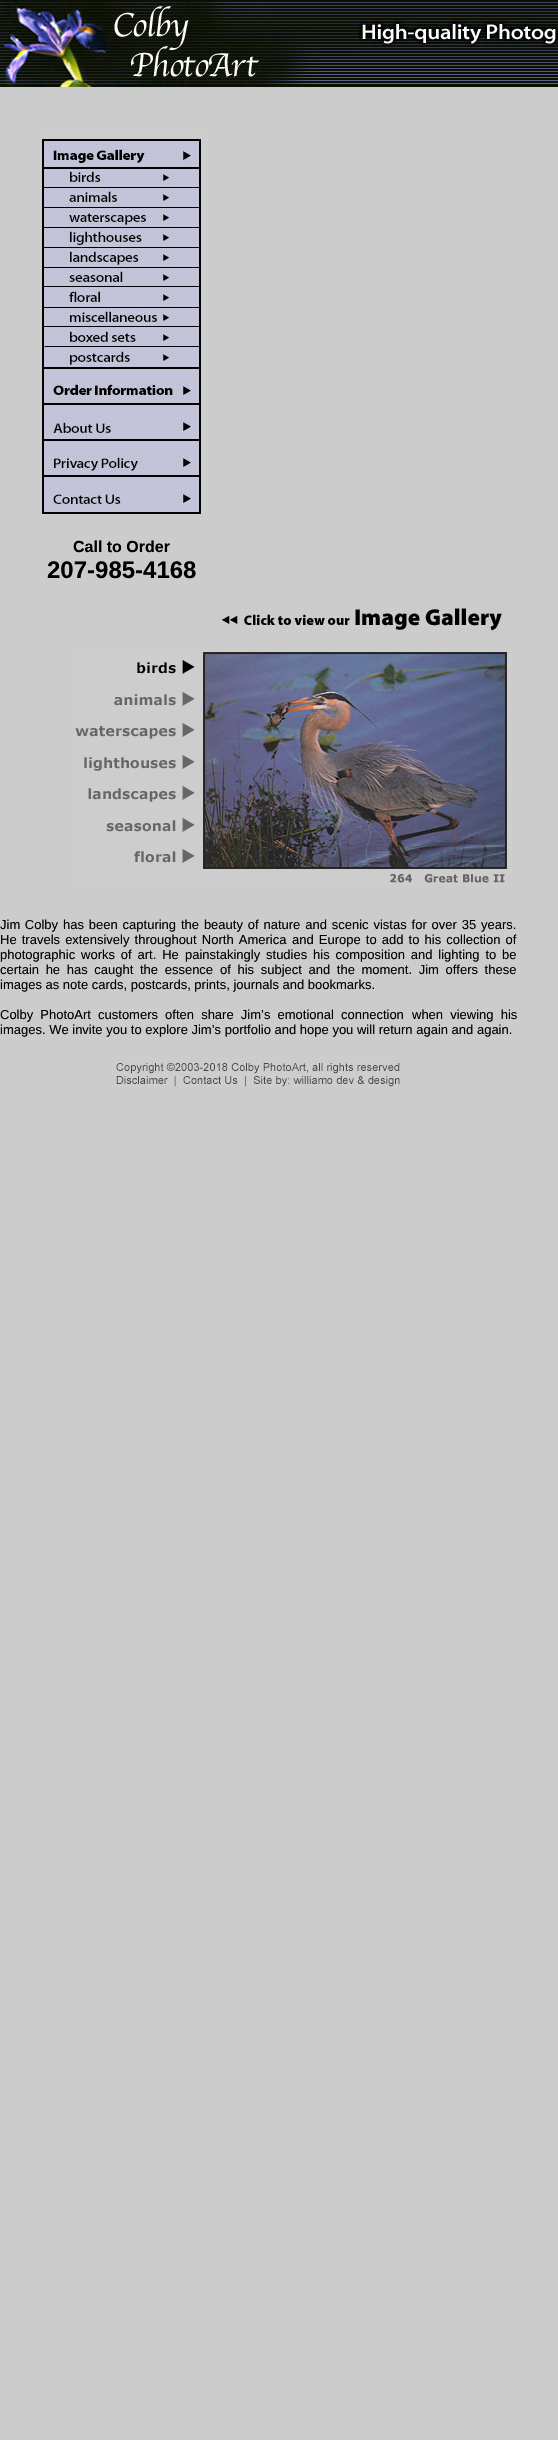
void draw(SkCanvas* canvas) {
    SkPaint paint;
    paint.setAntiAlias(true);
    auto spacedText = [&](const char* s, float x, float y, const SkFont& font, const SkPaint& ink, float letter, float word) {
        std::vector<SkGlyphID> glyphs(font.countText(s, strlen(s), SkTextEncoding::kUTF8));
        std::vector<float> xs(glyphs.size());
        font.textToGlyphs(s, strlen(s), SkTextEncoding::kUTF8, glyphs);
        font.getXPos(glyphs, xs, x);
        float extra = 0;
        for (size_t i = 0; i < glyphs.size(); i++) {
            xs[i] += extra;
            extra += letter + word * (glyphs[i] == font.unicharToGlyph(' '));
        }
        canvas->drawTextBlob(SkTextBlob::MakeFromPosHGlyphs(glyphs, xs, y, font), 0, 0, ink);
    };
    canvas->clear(0xFFCCCCCC);
    canvas->drawImageRect(SkImages::DeferredFromEncodedData(SkData::MakeFromFileName("img1.png")), SkRect::MakeXYWH(320, 0, 14, 87), SkSamplingOptions());
    canvas->drawImageRect(SkImages::DeferredFromEncodedData(SkData::MakeFromFileName("img2.png")), SkRect::MakeXYWH(0, 0, 320, 87), SkSamplingOptions());
    canvas->drawImageRect(SkImages::DeferredFromEncodedData(SkData::MakeFromFileName("img3.png")), SkRect::MakeXYWH(334, 0, 224, 87), SkSamplingOptions());
    canvas->drawImageRect(SkImages::DeferredFromEncodedData(SkData::MakeFromFileName("img4.png")), SkRect::MakeXYWH(358, 16, 200, 38), SkSamplingOptions());
    canvas->drawImageRect(SkImages::DeferredFromEncodedData(SkData::MakeFromFileName("img5.png")), SkRect::MakeXYWH(40, 135, 168, 379), SkSamplingOptions());
    SkFont font1(fontMgr->matchFamilyStyle("Liberation Sans", SkFontStyle::Bold()), 16);
    font1.setSubpixel(true);
    paint.setColor(0xFF000000);
    canvas->drawString("Call to Order", 73, 552, font1, paint);
    SkFont font2(fontMgr->matchFamilyStyle("Liberation Sans", SkFontStyle::Bold()), 24);
    font2.setSubpixel(true);
    canvas->drawString("207-985-4168", 47, 578, font2, paint);
    canvas->drawImageRect(SkImages::DeferredFromEncodedData(SkData::MakeFromFileName("img6.png")), SkRect::MakeXYWH(219, 608, 288, 24), SkSamplingOptions());
    canvas->drawImageRect(SkImages::DeferredFromEncodedData(SkData::MakeFromFileName("img7.png")), SkRect::MakeXYWH(75, 650, 9, 235), SkSamplingOptions());
    canvas->drawImageRect(SkImages::DeferredFromEncodedData(SkData::MakeFromFileName("img8.png")), SkRect::MakeXYWH(84, 650, 4, 235), SkSamplingOptions());
    canvas->drawImageRect(SkImages::DeferredFromEncodedData(SkData::MakeFromFileName("img9.png")), SkRect::MakeXYWH(88, 650, 424, 235), SkSamplingOptions());
    canvas->drawImageRect(SkImages::DeferredFromEncodedData(SkData::MakeFromFileName("img10.png")), SkRect::MakeXYWH(106, 650, 406, 233), SkSamplingOptions());
    canvas->drawImageRect(SkImages::DeferredFromEncodedData(SkData::MakeFromFileName("img11.png")), SkRect::MakeXYWH(134, 650, 377, 233), SkSamplingOptions());
    SkFont font3(fontMgr->matchFamilyStyle("Liberation Sans", SkFontStyle::Normal()), 13);
    font3.setSubpixel(true);
    spacedText("Jim Colby", 0, 929, font3, paint, 0, 1);
    spacedText("has been capturing the beauty of nature and scenic vistas for over 35 years.", 63, 929, font3, paint, 0, 1.25f);
    spacedText("He travels extensively throughout North America", 0, 944, font3, paint, 0, 1.5f);
    spacedText("and Europe to add to his collection of", 292, 944, font3, paint, 0, 1.5f);
    spacedText("photographic works of art. He", 0, 959, font3, paint, 0, 2.25f);
    spacedText("painstakingly studies his composition and lighting to be", 185, 959, font3, paint, 0, 2.25f);
    spacedText("certain he has caught", 0, 974, font3, paint, 0, 3);
    spacedText("the essence", 140, 974, font3, paint, 0, 3);
    spacedText("of his subject and the moment. Jim offers these", 220, 974, font3, paint, 0, 3);
    canvas->drawString("images as note cards, postcards, prints, journals and bookmarks.", 0, 989, font3, paint);
    spacedText("Colby PhotoArt customers often share Jim’s emotional connection", 0, 1019, font3, paint, 0, 3.5f);
    spacedText("when viewing his", 412, 1019, font3, paint, 0, 3.5f);
    canvas->drawString("images. We invite you to explore Jim’s portfolio and hope you will return again and again.", 0, 1034, font3, paint);
    canvas->drawImageRect(SkImages::DeferredFromEncodedData(SkData::MakeFromFileName("img12.png")), SkRect::MakeXYWH(116, 1063, 284, 24), SkSamplingOptions());
}
